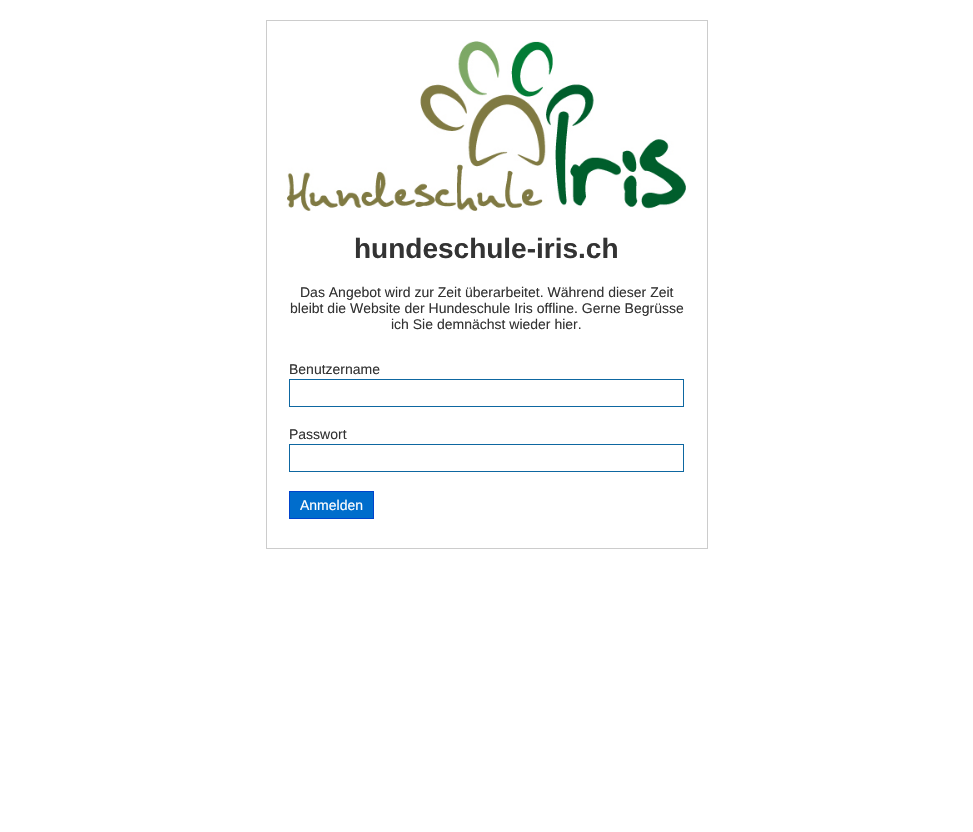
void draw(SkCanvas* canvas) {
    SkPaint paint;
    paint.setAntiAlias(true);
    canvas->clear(0xFFFFFFFF);
    paint.setStyle(SkPaint::kStroke_Style);
    paint.setStrokeWidth(1);
    paint.setColor(0xFFCCCCCC);
    canvas->drawRect(SkRect::MakeXYWH(266.5f, 20.5f, 441, 528), paint);
    canvas->drawImageRect(SkImages::DeferredFromEncodedData(SkData::MakeFromFileName("img1.png")), SkRect::MakeXYWH(287, 41, 399, 170), SkSamplingOptions());
    SkFont font1(fontMgr->matchFamilyStyle("Liberation Sans", SkFontStyle::Bold()), 28);
    font1.setSubpixel(true);
    paint.setStyle(SkPaint::kFill_Style);
    paint.setColor(0xFF333333);
    canvas->drawString("hundeschule-iris.ch", 354, 258, font1, paint);
    SkFont font2(fontMgr->matchFamilyStyle("Liberation Sans", SkFontStyle::Normal()), 14);
    font2.setSubpixel(true);
    canvas->drawString("Das Angebot wird zur Zeit überarbeitet. Während dieser Zeit", 300, 297, font2, paint);
    canvas->drawString("bleibt die Website der Hundeschule Iris offline. Gerne Begrüsse", 290, 313, font2, paint);
    canvas->drawString("ich Sie demnächst wieder hier.", 391, 329, font2, paint);
    canvas->drawString("Benutzername", 289, 374, font2, paint);
    paint.setStyle(SkPaint::kStroke_Style);
    paint.setColor(0xFF0E67A1);
    canvas->drawRect(SkRect::MakeXYWH(289.5f, 379.5f, 394, 27), paint);
    paint.setStyle(SkPaint::kFill_Style);
    paint.setColor(0xFF333333);
    canvas->drawString("Passwort", 289, 439, font2, paint);
    paint.setStyle(SkPaint::kStroke_Style);
    paint.setColor(0xFF0E67A1);
    canvas->drawRect(SkRect::MakeXYWH(289.5f, 444.5f, 394, 27), paint);
    paint.setStyle(SkPaint::kFill_Style);
    paint.setColor(0xFF006DCC);
    canvas->drawRect(SkRect::MakeXYWH(289.5f, 491.5f, 84, 27), paint);
    paint.setStyle(SkPaint::kStroke_Style);
    paint.setColor(0xFF0044CC);
    canvas->drawRect(SkRect::MakeXYWH(289.5f, 491.5f, 84, 27), paint);
    paint.setStyle(SkPaint::kFill_Style);
    paint.setColor(0xFFFFFFFF);
    canvas->drawString("Anmelden", 300, 510, font2, paint);
}
